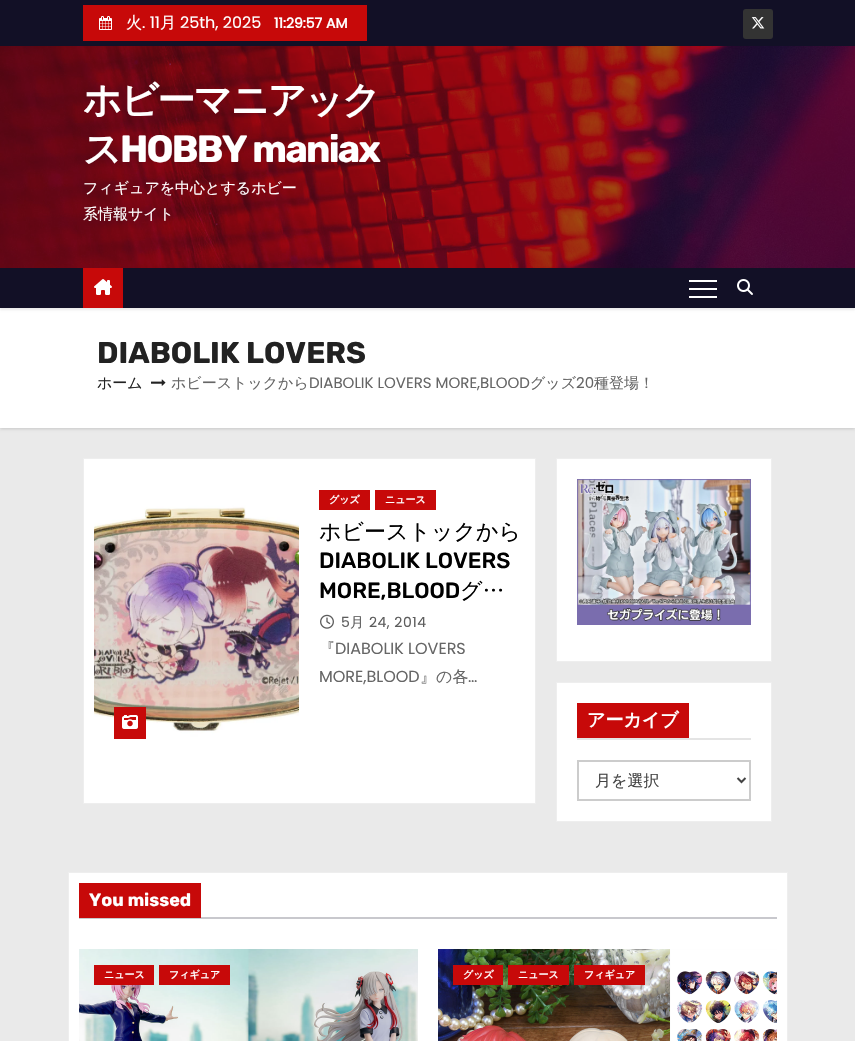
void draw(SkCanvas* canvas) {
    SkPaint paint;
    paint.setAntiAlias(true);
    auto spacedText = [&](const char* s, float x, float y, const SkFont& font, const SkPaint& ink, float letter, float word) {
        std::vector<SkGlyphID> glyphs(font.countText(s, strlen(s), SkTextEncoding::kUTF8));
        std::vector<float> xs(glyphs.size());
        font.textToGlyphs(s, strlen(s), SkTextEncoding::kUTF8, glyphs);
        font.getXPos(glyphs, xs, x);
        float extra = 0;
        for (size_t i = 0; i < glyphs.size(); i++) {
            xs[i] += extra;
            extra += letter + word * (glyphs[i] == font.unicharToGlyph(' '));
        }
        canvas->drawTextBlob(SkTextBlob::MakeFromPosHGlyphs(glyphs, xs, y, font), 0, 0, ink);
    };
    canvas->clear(0xFFEAEAEA);
    paint.setColor(0xFF121026);
    canvas->drawRect(SkRect::MakeXYWH(0, 0, 855, 46), paint);
    paint.setColor(0xFFC70909);
    canvas->drawRect(SkRect::MakeXYWH(83, 5, 284, 36), paint);
    canvas->drawImageRect(SkImages::DeferredFromEncodedData(SkData::MakeFromFileName("img1.png")), SkRect::MakeXYWH(99, 16, 13, 14), SkSamplingOptions());
    SkFont font1(fontMgr->matchFamilyStyle("WenQuanYi Zen Hei", SkFontStyle(500, SkFontStyle::kNormal_Width, SkFontStyle::kUpright_Slant)), 16);
    font1.setSubpixel(true);
    paint.setColor(0xFFFFFFFF);
    canvas->drawString("火", 126, 28, font1, paint);
    SkFont font2(fontMgr->matchFamilyStyle("Poppins", SkFontStyle::Normal()), 16);
    font2.setSubpixel(true);
    canvas->drawString(". 11", 142, 28, font2, paint);
    canvas->drawString("月", 160, 28, font1, paint);
    canvas->drawString("25th, 2025", 180, 28, font2, paint);
    SkFont font3(fontMgr->matchFamilyStyle("Poppins", SkFontStyle::Bold()), 14);
    font3.setSubpixel(true);
    canvas->drawString("11:29:57 AM", 274, 28, font3, paint);
    paint.setColor(0xFF333333);
    canvas->drawRoundRect(SkRect::MakeXYWH(743, 9, 30, 30), 3, 3, paint);
    canvas->drawImageRect(SkImages::DeferredFromEncodedData(SkData::MakeFromFileName("img2.png")), SkRect::MakeXYWH(751, 17, 14, 12), SkSamplingOptions());
    canvas->drawImageRect(SkImages::DeferredFromEncodedData(SkData::MakeFromFileName("img3.png")), SkRect::MakeXYWH(0, 46, 855, 222), SkSamplingOptions());
    SkFont font4(fontMgr->matchFamilyStyle("WenQuanYi Zen Hei", SkFontStyle::Bold()), 38);
    font4.setSubpixel(true);
    paint.setColor(0xFFFFFFFF);
    spacedText("ホビーマニアック", 83, 113, font4, paint, -1.75f, 0);
    spacedText("ス", 83, 162, font4, paint, -1.75f, 0);
    SkFont font5(fontMgr->matchFamilyStyle("Rubik", SkFontStyle::Bold()), 38);
    font5.setSubpixel(true);
    spacedText("HOBBY maniax", 120, 162, font5, paint, -1.75f, 0);
    SkFont font6(fontMgr->matchFamilyStyle("WenQuanYi Zen Hei", SkFontStyle(500, SkFontStyle::kNormal_Width, SkFontStyle::kUpright_Slant)), 15);
    font6.setSubpixel(true);
    canvas->drawString("フィギュアを中心とするホビー", 83, 193, font6, paint);
    canvas->drawString("系情報サイト", 83, 219, font6, paint);
    paint.setColor(0x26000000);
    paint.setMaskFilter(SkMaskFilter::MakeBlur(kNormal_SkBlurStyle, 1.5f));
    canvas->drawRect(SkRect::MakeXYWH(0, 309, 855, 120), paint);
    paint.setMaskFilter(nullptr);
    paint.setColor(0xFFFFFFFF);
    canvas->drawRect(SkRect::MakeXYWH(0, 308, 855, 120), paint);
    paint.setColor(0x14000000);
    paint.setMaskFilter(SkMaskFilter::MakeBlur(kNormal_SkBlurStyle, 1));
    canvas->drawRect(SkRect::MakeXYWH(0, 270, 855, 40), paint);
    paint.setMaskFilter(nullptr);
    paint.setColor(0xFF121026);
    canvas->drawRect(SkRect::MakeXYWH(0, 268, 855, 40), paint);
    paint.setColor(0xFFC70909);
    canvas->drawRect(SkRect::MakeXYWH(83, 268, 40, 40), paint);
    canvas->drawImageRect(SkImages::DeferredFromEncodedData(SkData::MakeFromFileName("img4.png")), SkRect::MakeXYWH(94, 279, 18, 16), SkSamplingOptions());
    paint.setColor(0xFFFFFFFF);
    canvas->drawRect(SkRect::MakeXYWH(689, 280, 28, 2), paint);
    canvas->drawRect(SkRect::MakeXYWH(689, 288, 28, 2), paint);
    canvas->drawRect(SkRect::MakeXYWH(689, 296, 28, 2), paint);
    canvas->drawImageRect(SkImages::DeferredFromEncodedData(SkData::MakeFromFileName("img5.png")), SkRect::MakeXYWH(737, 279, 16, 16), SkSamplingOptions());
    SkFont font7(fontMgr->matchFamilyStyle("Rubik", SkFontStyle::Bold()), 30);
    font7.setSubpixel(true);
    paint.setColor(0xFF222222);
    canvas->drawString("DIABOLIK LOVERS", 97, 363, font7, paint);
    canvas->drawString("ホーム", 97, 388, font6, paint);
    canvas->drawImageRect(SkImages::DeferredFromEncodedData(SkData::MakeFromFileName("img6.png")), SkRect::MakeXYWH(151, 379, 15, 7), SkSamplingOptions());
    paint.setColor(0xFF666666);
    canvas->drawString("ホビーストックから", 171, 388, font6, paint);
    SkFont font8(fontMgr->matchFamilyStyle("Poppins", SkFontStyle::Normal()), 15);
    font8.setSubpixel(true);
    canvas->drawString("DIABOLIK LOVERS MORE,BLOOD", 309, 388, font8, paint);
    canvas->drawString("グッズ", 530, 388, font6, paint);
    canvas->drawString("20", 576, 388, font8, paint);
    canvas->drawString("種登場！", 594, 388, font6, paint);
    paint.setColor(0xFFFFFFFF);
    canvas->drawRect(SkRect::MakeXYWH(83.5f, 458.5f, 452, 345), paint);
    paint.setStyle(SkPaint::kStroke_Style);
    paint.setStrokeWidth(1);
    paint.setColor(0xFFEEEEEE);
    canvas->drawRect(SkRect::MakeXYWH(83.5f, 458.5f, 452, 345), paint);
    canvas->drawImageRect(SkImages::DeferredFromEncodedData(SkData::MakeFromFileName("img7.png")), SkRect::MakeXYWH(94, 469, 205, 300), SkSamplingOptions());
    paint.setStyle(SkPaint::kFill_Style);
    paint.setColor(0xFFC70909);
    canvas->drawRect(SkRect::MakeXYWH(114, 707, 32, 32), paint);
    canvas->drawImageRect(SkImages::DeferredFromEncodedData(SkData::MakeFromFileName("img8.png")), SkRect::MakeXYWH(122, 715, 16, 14), SkSamplingOptions());
    canvas->drawRect(SkRect::MakeXYWH(319, 490, 51, 20), paint);
    SkFont font9(fontMgr->matchFamilyStyle("WenQuanYi Zen Hei", SkFontStyle::Bold()), 10);
    font9.setSubpixel(true);
    paint.setColor(0xFFFFFFFF);
    canvas->drawString("グッズ", 329, 503, font9, paint);
    paint.setColor(0xFFC70909);
    canvas->drawRect(SkRect::MakeXYWH(375, 490, 61, 20), paint);
    paint.setColor(0xFFFFFFFF);
    canvas->drawString("ニュース", 385, 503, font9, paint);
    SkFont font10(fontMgr->matchFamilyStyle("WenQuanYi Zen Hei", SkFontStyle(500, SkFontStyle::kNormal_Width, SkFontStyle::kUpright_Slant)), 22);
    font10.setSubpixel(true);
    paint.setColor(0xFF000000);
    canvas->drawString("ホビーストックから", 319, 539, font10, paint);
    SkFont font11(fontMgr->matchFamilyStyle("Rubik", SkFontStyle(500, SkFontStyle::kNormal_Width, SkFontStyle::kUpright_Slant)), 22);
    font11.setSubpixel(true);
    canvas->drawString("DIABOLIK LOVERS", 319, 568, font11, paint);
    canvas->drawString("MORE,BLOOD", 319, 598, font11, paint);
    canvas->drawString("グ…", 460, 598, font10, paint);
    canvas->drawImageRect(SkImages::DeferredFromEncodedData(SkData::MakeFromFileName("img9.png")), SkRect::MakeXYWH(320, 614, 14, 15), SkSamplingOptions());
    SkFont font12(fontMgr->matchFamilyStyle("Poppins", SkFontStyle::Normal()), 14);
    font12.setSubpixel(true);
    paint.setColor(0xFF5C5C5C);
    spacedText("5", 341, 627, font12, paint, 0.5f, 0);
    SkFont font13(fontMgr->matchFamilyStyle("WenQuanYi Zen Hei", SkFontStyle(500, SkFontStyle::kNormal_Width, SkFontStyle::kUpright_Slant)), 14);
    font13.setSubpixel(true);
    spacedText("月", 350, 627, font13, paint, 0.5f, 0);
    spacedText("24, 2014", 369, 627, font12, paint, 0.5f, 0);
    paint.setColor(0xFF666666);
    canvas->drawString("『", 319, 654, font1, paint);
    canvas->drawString("DIABOLIK LOVERS", 335, 654, font2, paint);
    canvas->drawString("MORE,BLOOD", 319, 682, font2, paint);
    canvas->drawString("』の各", 420, 682, font1, paint);
    canvas->drawString("…", 468, 682, font2, paint);
    paint.setColor(0xFFFFFFFF);
    canvas->drawRect(SkRect::MakeXYWH(556.5f, 458.5f, 215, 203), paint);
    paint.setStyle(SkPaint::kStroke_Style);
    paint.setColor(0xFFEEEEEE);
    canvas->drawRect(SkRect::MakeXYWH(556.5f, 458.5f, 215, 203), paint);
    canvas->drawImageRect(SkImages::DeferredFromEncodedData(SkData::MakeFromFileName("img10.png")), SkRect::MakeXYWH(577, 479, 174, 146), SkSamplingOptions());
    paint.setStyle(SkPaint::kFill_Style);
    paint.setColor(0xFFFFFFFF);
    canvas->drawRect(SkRect::MakeXYWH(556.5f, 682.5f, 215, 139), paint);
    paint.setStyle(SkPaint::kStroke_Style);
    paint.setColor(0xFFEEEEEE);
    canvas->drawRect(SkRect::MakeXYWH(556.5f, 682.5f, 215, 139), paint);
    paint.setStyle(SkPaint::kFill_Style);
    paint.setColor(0xFFE4E4E4);
    canvas->drawRect(SkRect::MakeXYWH(577, 738, 174, 2), paint);
    paint.setColor(0xFFC70909);
    canvas->drawRect(SkRect::MakeXYWH(577, 703, 112, 35), paint);
    SkFont font14(fontMgr->matchFamilyStyle("WenQuanYi Zen Hei", SkFontStyle::Bold()), 18);
    font14.setSubpixel(true);
    paint.setColor(0xFFFFFFFF);
    canvas->drawString("アーカイブ", 587, 726, font14, paint);
    paint.setStyle(SkPaint::kStroke_Style);
    paint.setStrokeWidth(2);
    paint.setColor(0xFFCCCCCC);
    canvas->drawRect(SkRect::MakeXYWH(578, 761, 172, 39), paint);
    paint.setColor(0xFF444444);
    canvas->drawPath(SkPathBuilder().moveTo(737.5f, 778).lineTo(741.5f, 782).lineTo(745.5f, 778).detach(), paint);
    paint.setStyle(SkPaint::kFill_Style);
    canvas->drawString("月を選択", 595, 786, font1, paint);
    paint.setColor(0xFFFFFFFF);
    canvas->drawRect(SkRect::MakeXYWH(68.5f, 872.5f, 719, 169), paint);
    paint.setStyle(SkPaint::kStroke_Style);
    paint.setStrokeWidth(1);
    paint.setColor(0xFFEEEEEE);
    canvas->drawRect(SkRect::MakeXYWH(68.5f, 872.5f, 719, 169), paint);
    paint.setStyle(SkPaint::kFill_Style);
    paint.setColor(0xFFC8C8CD);
    canvas->drawRect(SkRect::MakeXYWH(79, 917, 698, 2), paint);
    paint.setColor(0xFFC70909);
    canvas->drawRect(SkRect::MakeXYWH(79, 883, 122, 35), paint);
    SkFont font15(fontMgr->matchFamilyStyle("Rubik", SkFontStyle::Bold()), 18);
    font15.setSubpixel(true);
    paint.setColor(0xFFFFFFFF);
    canvas->drawString("You missed", 89, 906, font15, paint);
    canvas->drawImageRect(SkImages::DeferredFromEncodedData(SkData::MakeFromFileName("img11.png")), SkRect::MakeXYWH(79, 949, 339, 92), SkSamplingOptions());
    paint.setColor(0xFFC70909);
    canvas->drawRect(SkRect::MakeXYWH(94, 965, 60, 20), paint);
    paint.setColor(0xFFFFFFFF);
    canvas->drawString("ニュース", 104, 978, font9, paint);
    paint.setColor(0xFFC70909);
    canvas->drawRect(SkRect::MakeXYWH(159, 965, 71, 20), paint);
    paint.setColor(0xFFFFFFFF);
    canvas->drawString("フィギュア", 169, 978, font9, paint);
    canvas->drawImageRect(SkImages::DeferredFromEncodedData(SkData::MakeFromFileName("img12.png")), SkRect::MakeXYWH(438, 949, 339, 92), SkSamplingOptions());
    paint.setColor(0xFFC70909);
    canvas->drawRect(SkRect::MakeXYWH(453, 965, 50, 20), paint);
    paint.setColor(0xFFFFFFFF);
    canvas->drawString("グッズ", 463, 978, font9, paint);
    paint.setColor(0xFFC70909);
    canvas->drawRect(SkRect::MakeXYWH(508, 965, 61, 20), paint);
    paint.setColor(0xFFFFFFFF);
    canvas->drawString("ニュース", 518, 978, font9, paint);
    paint.setColor(0xFFC70909);
    canvas->drawRect(SkRect::MakeXYWH(574, 965, 71, 20), paint);
    paint.setColor(0xFFFFFFFF);
    canvas->drawString("フィギュア", 584, 978, font9, paint);
}
